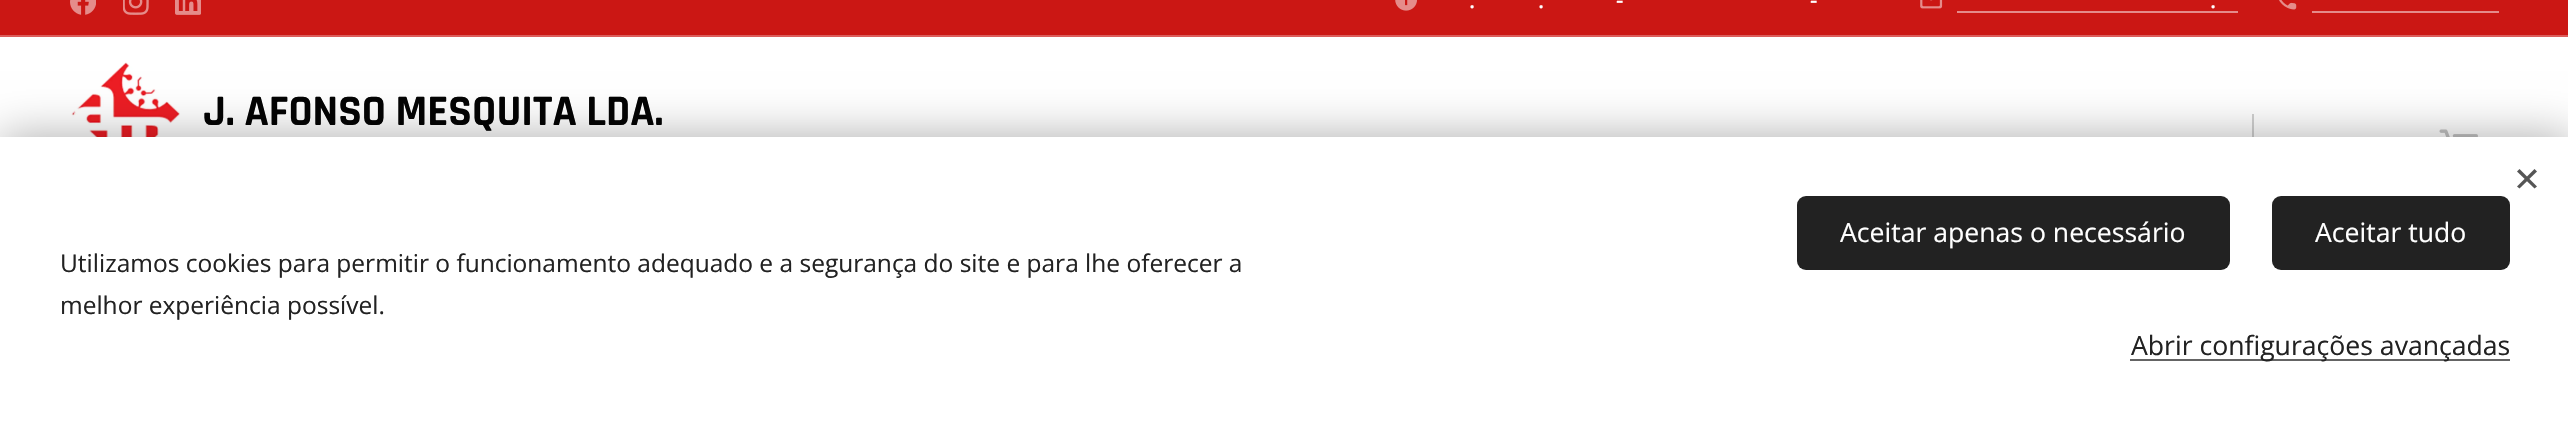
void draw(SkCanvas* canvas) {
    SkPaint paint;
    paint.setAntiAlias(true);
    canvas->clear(0xFFFFFFFF);
    paint.setColor(0xFFCB1714);
    canvas->drawRect(SkRect::MakeXYWH(0, 0, 2568, 35), paint);
    canvas->drawImageRect(SkImages::DeferredFromEncodedData(SkData::MakeFromFileName("img1.png")), SkRect::MakeXYWH(70, 0, 26, 15), SkSamplingOptions());
    canvas->drawImageRect(SkImages::DeferredFromEncodedData(SkData::MakeFromFileName("img2.png")), SkRect::MakeXYWH(123, 0, 26, 15), SkSamplingOptions());
    canvas->drawImageRect(SkImages::DeferredFromEncodedData(SkData::MakeFromFileName("img3.png")), SkRect::MakeXYWH(175, 0, 26, 15), SkSamplingOptions());
    canvas->drawImageRect(SkImages::DeferredFromEncodedData(SkData::MakeFromFileName("img4.png")), SkRect::MakeXYWH(1395, 0, 22, 11), SkSamplingOptions());
    SkFont font1(fontMgr->matchFamilyStyle("Open Sans", SkFontStyle(500, SkFontStyle::kNormal_Width, SkFontStyle::kUpright_Slant)), 23);
    font1.setSubpixel(true);
    paint.setColor(0xFFFFFFFF);
    canvas->drawString("-", 1616, 8, font1, paint);
    canvas->drawString("-", 1810, 8, font1, paint);
    canvas->drawString(".", 1469, 8, font1, paint);
    canvas->drawString(".", 1538, 8, font1, paint);
    canvas->drawImageRect(SkImages::DeferredFromEncodedData(SkData::MakeFromFileName("img5.png")), SkRect::MakeXYWH(1920, 0, 23, 9), SkSamplingOptions());
    canvas->drawString(".", 2210, 8, font1, paint);
    paint.setColor(0xFFE58B8A);
    canvas->drawRect(SkRect::MakeXYWH(1957, 11, 281, 2), paint);
    canvas->drawImageRect(SkImages::DeferredFromEncodedData(SkData::MakeFromFileName("img6.png")), SkRect::MakeXYWH(2279, 0, 18, 10), SkSamplingOptions());
    canvas->drawRect(SkRect::MakeXYWH(2312, 11, 187, 2), paint);
    paint.setColor(0xFFDB5D5B);
    canvas->drawRect(SkRect::MakeXYWH(0, 35, 2568, 2), paint);
    canvas->drawImageRect(SkImages::DeferredFromEncodedData(SkData::MakeFromFileName("img7.png")), SkRect::MakeXYWH(71, 62, 109, 75), SkSamplingOptions());
    SkFont font2(fontMgr->matchFamilyStyle("Rajdhani", SkFontStyle::Bold()), 43.75f);
    font2.setSubpixel(true);
    paint.setColor(0xFF030303);
    canvas->drawString("J. AFONSO MESQUITA LDA.", 203, 125, font2, paint);
    paint.setColor(0xFFD1D1D1);
    canvas->drawRect(SkRect::MakeXYWH(2252, 114, 2, 23), paint);
    canvas->drawImageRect(SkImages::DeferredFromEncodedData(SkData::MakeFromFileName("img8.png")), SkRect::MakeXYWH(2439, 129, 39, 8), SkSamplingOptions());
    paint.setColor(0x54000000);
    paint.setMaskFilter(SkMaskFilter::MakeBlur(kNormal_SkBlurStyle, 22));
    canvas->drawRect(SkRect::MakeXYWH(0, 137, 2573, 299), paint);
    paint.setMaskFilter(nullptr);
    paint.setColor(0xFFFFFFFF);
    canvas->drawRect(SkRect::MakeXYWH(0, 137, 2568, 294), paint);
    paint.setColor(0xFF555555);
    canvas->drawPath(SkPathBuilder().moveTo(2517, 186.5f).lineTo(2534.5f, 169).lineTo(2537, 171.5f).lineTo(2519.5f, 188.5f).close().detach(), paint);
    canvas->drawPath(SkPathBuilder().moveTo(2519.5f, 169).lineTo(2537, 186.5f).lineTo(2534.5f, 188.5f).lineTo(2517, 171.5f).close().detach(), paint);
    SkFont font3(fontMgr->matchFamilyStyle("Open Sans", SkFontStyle::Normal()), 24.5f);
    font3.setSubpixel(true);
    paint.setColor(0xFF222222);
    canvas->drawString("Utilizamos cookies para permitir o funcionamento adequado e a segurança do site e para lhe oferecer a", 60, 272, font3, paint);
    canvas->drawString("melhor experiência possível.", 60, 314, font3, paint);
    canvas->drawRoundRect(SkRect::MakeXYWH(1797, 196, 433, 74), 9, 9, paint);
    SkFont font4(fontMgr->matchFamilyStyle("Open Sans", SkFontStyle::Normal()), 26.6f);
    font4.setSubpixel(true);
    paint.setColor(0xFFFFFFFF);
    canvas->drawString("Aceitar apenas o necessário", 1840, 242, font4, paint);
    paint.setColor(0xFF222222);
    canvas->drawRoundRect(SkRect::MakeXYWH(2272, 196, 238, 74), 9, 9, paint);
    paint.setColor(0xFFFFFFFF);
    canvas->drawString("Aceitar tudo", 2315, 242, font4, paint);
    paint.setColor(0xFF646464);
    canvas->drawRect(SkRect::MakeXYWH(2130, 359, 380, 2), paint);
    paint.setColor(0xFF222222);
    canvas->drawString("Abrir configurações avançadas", 2131, 355, font4, paint);
}
